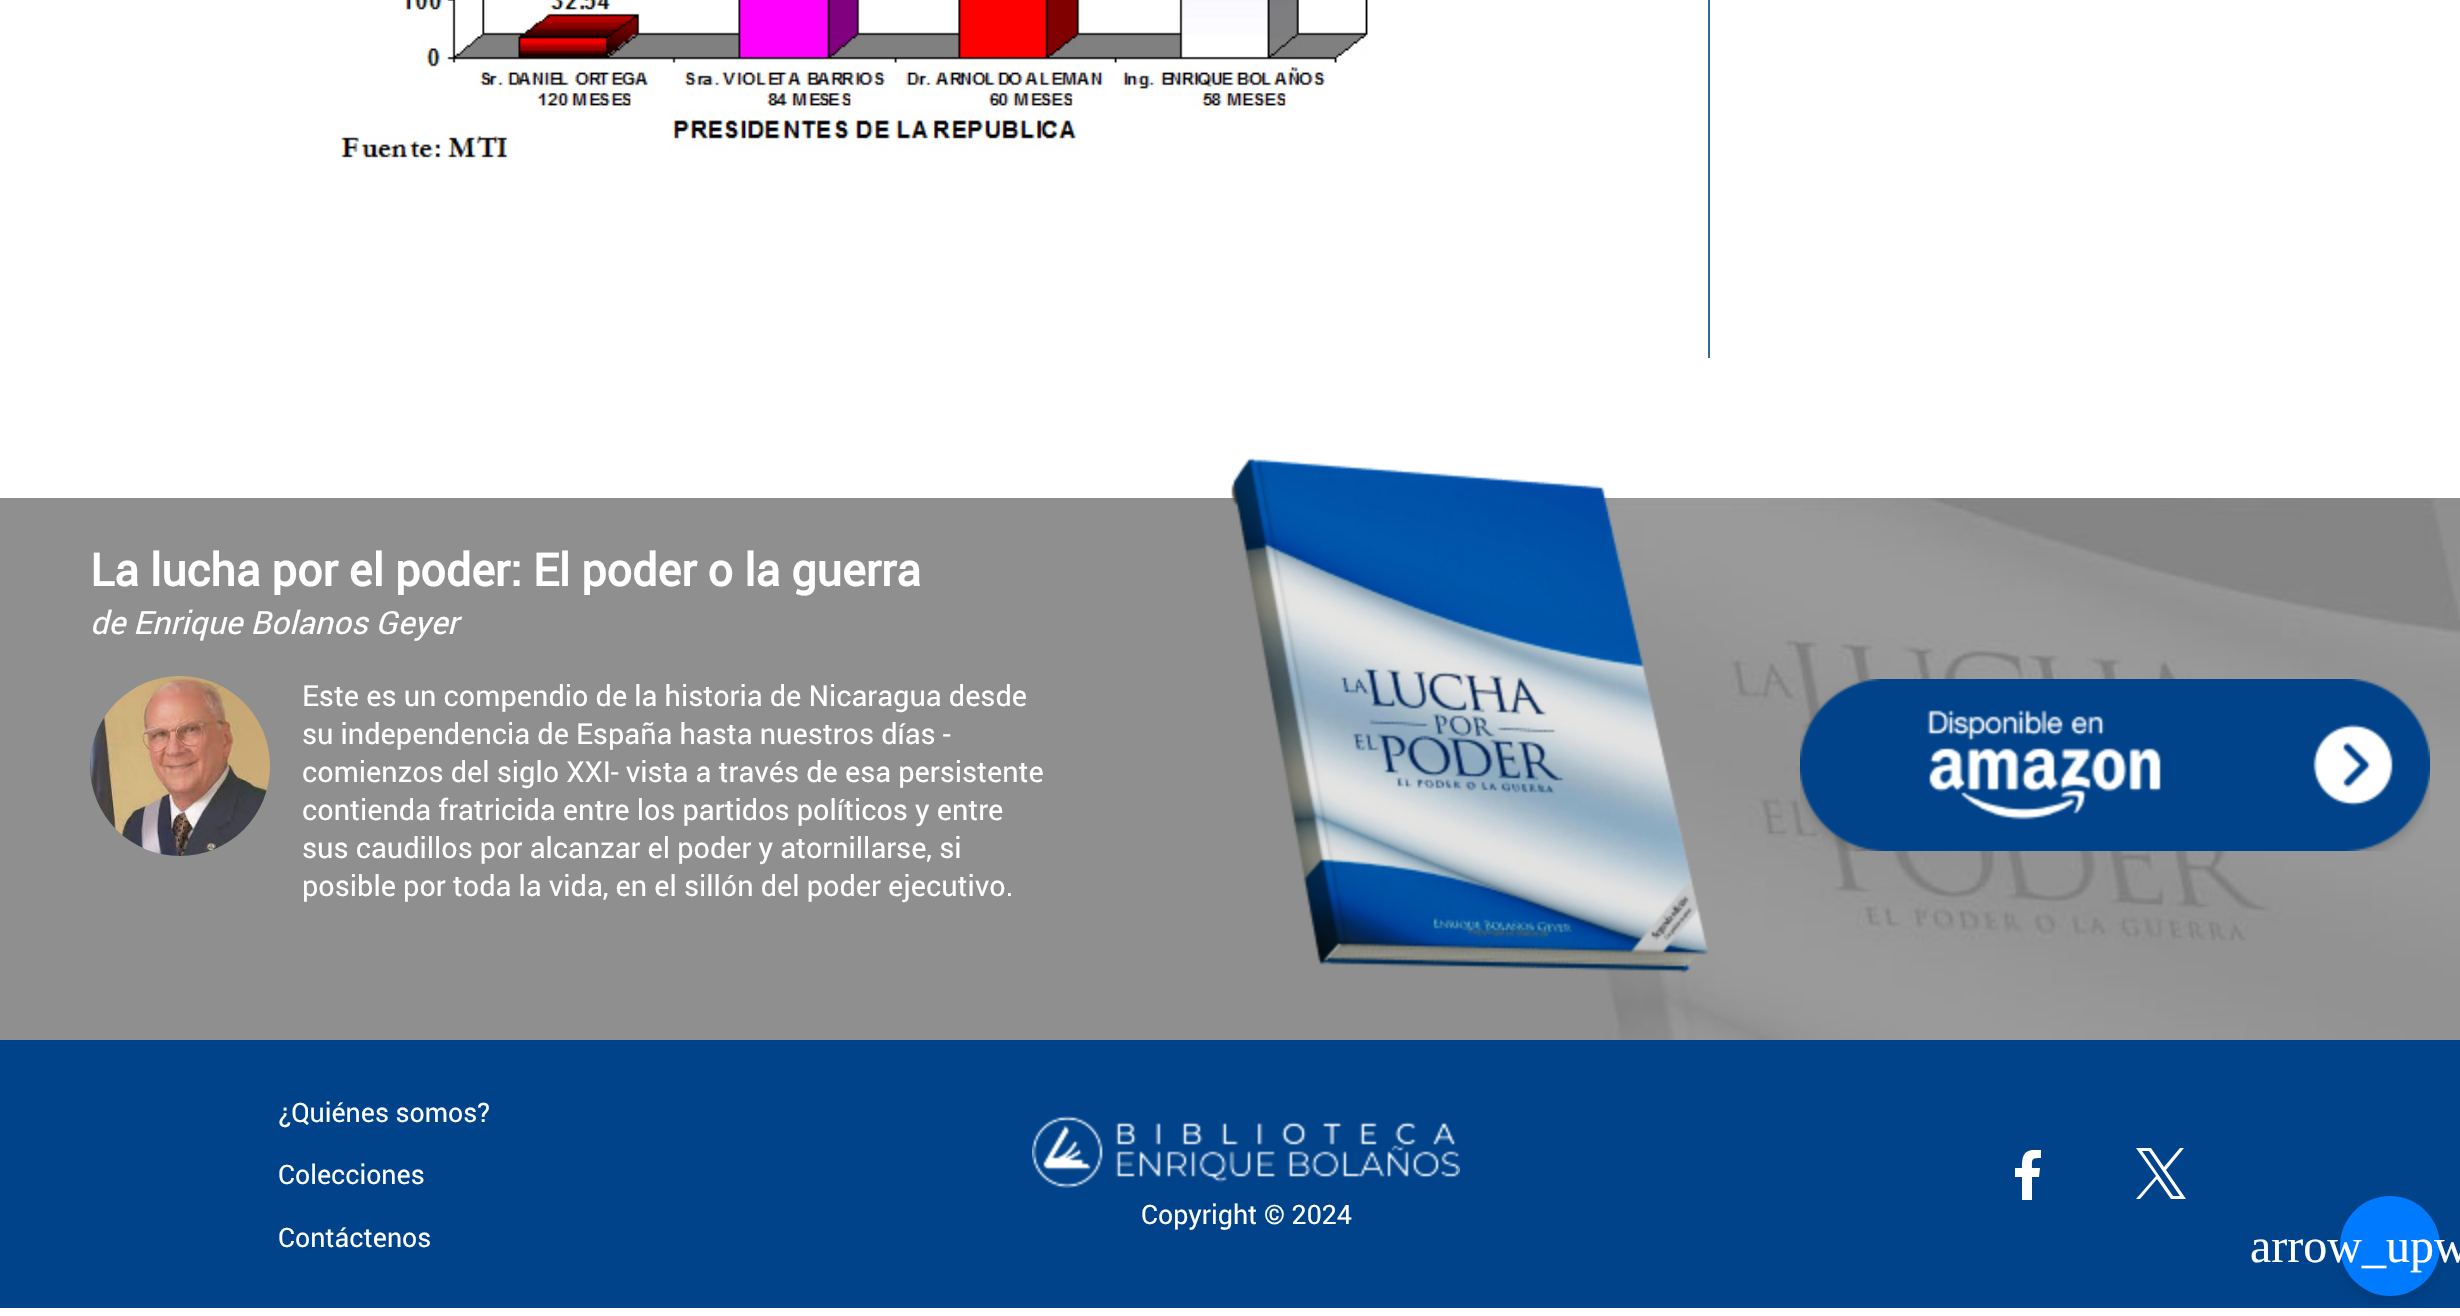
void draw(SkCanvas* canvas) {
    SkPaint paint;
    paint.setAntiAlias(true);
    canvas->clear(0xFFFFFFFF);
    paint.setColor(0xFF3369A1);
    canvas->drawRect(SkRect::MakeXYWH(1708, 0, 2, 358), paint);
    canvas->drawImageRect(SkImages::DeferredFromEncodedData(SkData::MakeFromFileName("img1.png")), SkRect::MakeXYWH(341, 0, 1027, 158), SkSamplingOptions());
    paint.setColor(0xFF8F8F8F);
    canvas->drawRect(SkRect::MakeXYWH(0, 498, 1527, 542), paint);
    canvas->drawImageRect(SkImages::DeferredFromEncodedData(SkData::MakeFromFileName("img2.png")), SkRect::MakeXYWH(1527, 498, 933, 542), SkSamplingOptions());
    SkFont font1(fontMgr->matchFamilyStyle("Roboto", SkFontStyle::Bold()), 44.75f);
    font1.setSubpixel(true);
    paint.setColor(0xFFFFFFFF);
    canvas->drawString("La lucha por el poder: El poder o la guerra", 90, 586, font1, paint);
    SkFont font2(fontMgr->matchFamilyStyle("Roboto", SkFontStyle::Italic()), 32);
    font2.setSubpixel(true);
    canvas->drawString("de Enrique Bolanos Geyer", 90, 634, font2, paint);
    canvas->drawImageRect(SkImages::DeferredFromEncodedData(SkData::MakeFromFileName("img3.png")), SkRect::MakeXYWH(90, 676, 180, 180), SkSamplingOptions());
    SkFont font3(fontMgr->matchFamilyStyle("Roboto", SkFontStyle::Normal()), 28.8f);
    font3.setSubpixel(true);
    canvas->drawString("Este es un compendio de la historia de Nicaragua desde", 302, 706, font3, paint);
    canvas->drawString("su independencia de España hasta nuestros días -", 302, 744, font3, paint);
    canvas->drawString("comienzos del siglo XXI- vista a través de esa persistente", 302, 782, font3, paint);
    canvas->drawString("contienda fratricida entre los partidos políticos y entre", 302, 820, font3, paint);
    canvas->drawString("sus caudillos por alcanzar el poder y atornillarse, si", 302, 858, font3, paint);
    canvas->drawString("posible por toda la vida, en el sillón del poder ejecutivo.", 302, 896, font3, paint);
    canvas->drawImageRect(SkImages::DeferredFromEncodedData(SkData::MakeFromFileName("img4.png")), SkRect::MakeXYWH(1230, 458, 478, 516), SkSamplingOptions());
    canvas->drawImageRect(SkImages::DeferredFromEncodedData(SkData::MakeFromFileName("img5.png")), SkRect::MakeXYWH(1800, 679, 630, 172), SkSamplingOptions());
    paint.setColor(0xFF00438A);
    canvas->drawRect(SkRect::MakeXYWH(0, 1040, 2460, 268), paint);
    SkFont font4(fontMgr->matchFamilyStyle("Roboto", SkFontStyle::Normal()), 26.75f);
    font4.setSubpixel(true);
    paint.setColor(0xFFFFFFFF);
    canvas->drawString("¿Quiénes somos?", 278, 1122, font4, paint);
    canvas->drawString("Colecciones", 278, 1184, font4, paint);
    canvas->drawString("Contáctenos", 278, 1247, font4, paint);
    canvas->drawPath(SkPathBuilder().moveTo(2034, 1150).cubicTo(2022, 1150, 2022, 1160, 2022, 1168).lineTo(2015, 1168).lineTo(2015, 1177).lineTo(2022, 1177).lineTo(2022, 1200).lineTo(2032, 1200).lineTo(2032, 1177).lineTo(2039, 1177).lineTo(2040, 1168).lineTo(2032, 1168).cubicTo(2032, 1159, 2031, 1158, 2041, 1158).lineTo(2041, 1150).close().detach(), paint);
    canvas->drawPath(SkPathBuilder().moveTo(2166, 1170).lineTo(2184, 1148).lineTo(2180, 1148).lineTo(2164, 1167).lineTo(2151, 1148).lineTo(2136, 1148).lineTo(2156, 1176).lineTo(2136, 1199).lineTo(2140, 1199).lineTo(2157, 1179).lineTo(2171, 1199).lineTo(2186, 1199).close().moveTo(2160, 1177).lineTo(2142, 1151).lineTo(2149, 1151).lineTo(2180, 1196).lineTo(2173, 1196).close().detach(), paint);
    canvas->drawImageRect(SkImages::DeferredFromEncodedData(SkData::MakeFromFileName("img6.png")), SkRect::MakeXYWH(1032, 1116, 428, 72), SkSamplingOptions());
    canvas->drawString("Copyright © 2024", 1141, 1224, font4, paint);
    paint.setColor(0x1A000000);
    paint.setMaskFilter(SkMaskFilter::MakeBlur(kNormal_SkBlurStyle, 6));
    canvas->drawRoundRect(SkRect::MakeXYWH(2340, 1204, 100, 100), 50, 50, paint);
    paint.setMaskFilter(nullptr);
    paint.setColor(0xFF007BFF);
    canvas->drawCircle(2390, 1246, 50, paint);
    SkFont font5(fontMgr->matchFamilyStyle("Liberation Serif", SkFontStyle::Normal()), 48);
    font5.setSubpixel(true);
    paint.setColor(0xFFFFFFFF);
    canvas->drawString("arrow_upw", 2250, 1262, font5, paint);
}
